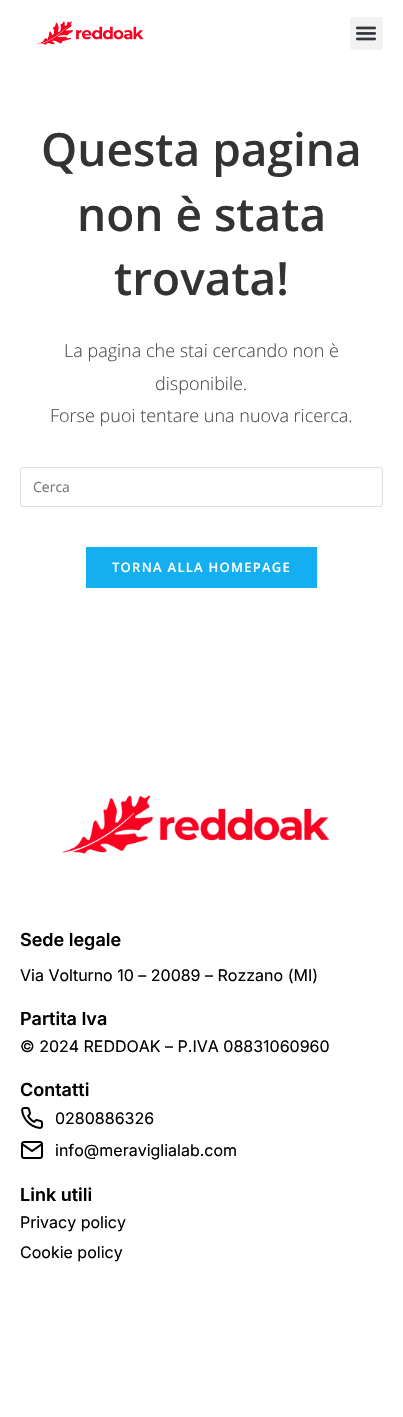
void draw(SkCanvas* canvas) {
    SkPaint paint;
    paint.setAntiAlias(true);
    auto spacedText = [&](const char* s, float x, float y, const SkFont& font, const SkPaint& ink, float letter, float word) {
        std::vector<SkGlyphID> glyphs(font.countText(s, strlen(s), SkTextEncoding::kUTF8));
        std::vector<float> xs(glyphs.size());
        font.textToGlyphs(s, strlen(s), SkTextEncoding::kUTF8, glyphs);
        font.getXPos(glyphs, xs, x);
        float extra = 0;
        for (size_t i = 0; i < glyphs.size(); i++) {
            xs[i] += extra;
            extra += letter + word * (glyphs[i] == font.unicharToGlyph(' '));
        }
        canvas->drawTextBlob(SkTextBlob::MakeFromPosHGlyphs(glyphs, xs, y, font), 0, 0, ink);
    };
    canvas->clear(0xFFFFFFFF);
    canvas->drawImageRect(SkImages::DeferredFromEncodedData(SkData::MakeFromFileName("img1.png")), SkRect::MakeXYWH(37, 21, 107, 24), SkSamplingOptions());
    paint.setColor(0xFFF2F2F2);
    canvas->drawRoundRect(SkRect::MakeXYWH(350, 17, 33, 33), 3, 3, paint);
    canvas->drawImageRect(SkImages::DeferredFromEncodedData(SkData::MakeFromFileName("img2.png")), SkRect::MakeXYWH(355, 26, 22, 15), SkSamplingOptions());
    SkFont font1(fontMgr->matchFamilyStyle("Open Sans", SkFontStyle(600, SkFontStyle::kNormal_Width, SkFontStyle::kUpright_Slant)), 46);
    font1.setSubpixel(true);
    paint.setColor(0xFF333333);
    canvas->drawString("Questa pagina", 41, 166, font1, paint);
    canvas->drawString("non è stata", 77, 231, font1, paint);
    canvas->drawString("trovata!", 114, 295, font1, paint);
    SkFont font2(fontMgr->matchFamilyStyle("Open Sans", SkFontStyle(300, SkFontStyle::kNormal_Width, SkFontStyle::kUpright_Slant)), 18);
    font2.setSubpixel(true);
    paint.setColor(0xFF4A4A4A);
    canvas->drawString("La pagina che stai cercando non è", 64, 357, font2, paint);
    canvas->drawString("disponibile.", 155, 390, font2, paint);
    canvas->drawString("Forse puoi tentare una nuova ricerca.", 50, 422, font2, paint);
    paint.setStyle(SkPaint::kStroke_Style);
    paint.setStrokeWidth(1);
    paint.setColor(0xFFDDDDDD);
    canvas->drawRoundRect(SkRect::MakeXYWH(20.5f, 467.5f, 362, 39), 2.5f, 2.5f, paint);
    SkFont font3(fontMgr->matchFamilyStyle("Open Sans", SkFontStyle::Normal()), 14);
    font3.setSubpixel(true);
    paint.setStyle(SkPaint::kFill_Style);
    paint.setColor(0xFF757575);
    canvas->drawString("Cerca", 33, 492, font3, paint);
    paint.setColor(0xFF13AFF0);
    canvas->drawRect(SkRect::MakeXYWH(86, 547, 231, 41), paint);
    SkFont font4(fontMgr->matchFamilyStyle("Open Sans", SkFontStyle(600, SkFontStyle::kNormal_Width, SkFontStyle::kUpright_Slant)), 13);
    font4.setSubpixel(true);
    paint.setColor(0xFFFFFFFF);
    spacedText("TORNA ALLA HOMEPAGE", 112, 572, font4, paint, 1.25f, 0);
    canvas->drawImageRect(SkImages::DeferredFromEncodedData(SkData::MakeFromFileName("img3.png")), SkRect::MakeXYWH(62, 795, 267, 59), SkSamplingOptions());
    SkFont font5(fontMgr->matchFamilyStyle("Inter", SkFontStyle(600, SkFontStyle::kNormal_Width, SkFontStyle::kUpright_Slant)), 18);
    font5.setSubpixel(true);
    paint.setColor(0xFF000000);
    canvas->drawString("Sede legale", 20, 946, font5, paint);
    SkFont font6(fontMgr->matchFamilyStyle("Inter", SkFontStyle::Normal()), 16);
    font6.setSubpixel(true);
    canvas->drawString("Via Volturno 10 – 20089 – Rozzano (MI)", 20, 981, font6, paint);
    canvas->drawString("Partita Iva", 20, 1025, font5, paint);
    canvas->drawString("© 2024 REDDOAK – P.IVA 08831060960", 20, 1052, font6, paint);
    canvas->drawString("Contatti", 20, 1096, font5, paint);
    canvas->drawImageRect(SkImages::DeferredFromEncodedData(SkData::MakeFromFileName("img4.png")), SkRect::MakeXYWH(21, 1107, 22, 22), SkSamplingOptions());
    canvas->drawString("0280886326", 55, 1124, font6, paint);
    canvas->drawImageRect(SkImages::DeferredFromEncodedData(SkData::MakeFromFileName("img5.png")), SkRect::MakeXYWH(21, 1141, 22, 18), SkSamplingOptions());
    canvas->drawString("info@meraviglialab.com", 55, 1156, font6, paint);
    canvas->drawString("Link utili", 20, 1201, font5, paint);
    canvas->drawString("Privacy policy", 20, 1228, font6, paint);
    canvas->drawString("Cookie policy", 20, 1258, font6, paint);
}
